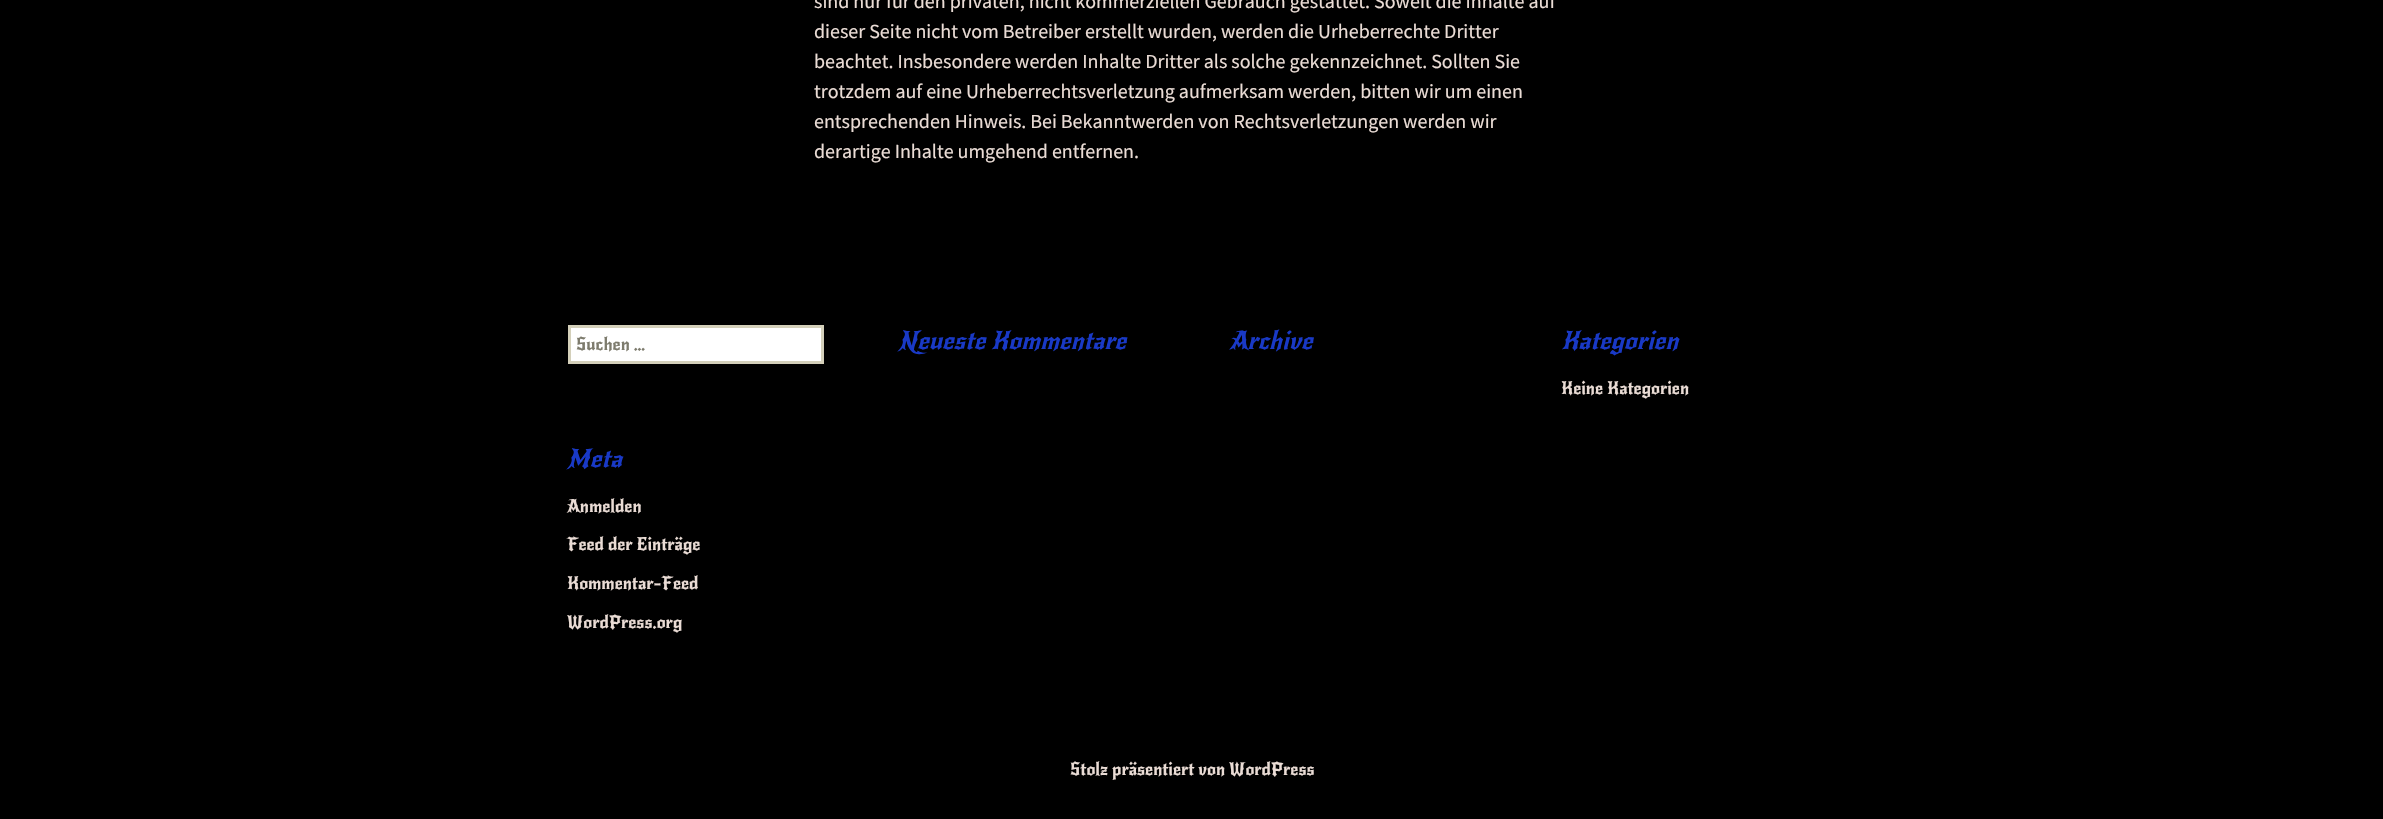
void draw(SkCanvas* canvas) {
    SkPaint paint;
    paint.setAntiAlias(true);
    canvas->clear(0xFF000000);
    SkFont font1(fontMgr->matchFamilyStyle("Source Sans Pro", SkFontStyle::Normal()), 20);
    font1.setSubpixel(true);
    paint.setColor(0xFFEADCD5);
    canvas->drawString("sind nur für den privaten, nicht kommerziellen Gebrauch gestattet. Soweit die Inhalte auf", 814, 8, font1, paint);
    canvas->drawString("dieser Seite nicht vom Betreiber erstellt wurden, werden die Urheberrechte Dritter", 814, 38, font1, paint);
    canvas->drawString("beachtet. Insbesondere werden Inhalte Dritter als solche gekennzeichnet. Sollten Sie", 814, 68, font1, paint);
    canvas->drawString("trotzdem auf eine Urheberrechtsverletzung aufmerksam werden, bitten wir um einen", 814, 98, font1, paint);
    canvas->drawString("entsprechenden Hinweis. Bei Bekanntwerden von Rechtsverletzungen werden wir", 814, 128, font1, paint);
    canvas->drawString("derartige Inhalte umgehend entfernen.", 814, 158, font1, paint);
    paint.setColor(0xFFFFFFFF);
    canvas->drawRect(SkRect::MakeXYWH(569.5f, 326.5f, 253, 36), paint);
    paint.setStyle(SkPaint::kStroke_Style);
    paint.setStrokeWidth(3);
    paint.setColor(0xFFD4D0BA);
    canvas->drawRect(SkRect::MakeXYWH(569.5f, 326.5f, 253, 36), paint);
    SkFont font2(fontMgr->matchFamilyStyle("New Rocker", SkFontStyle::Normal()), 17.5f);
    font2.setSubpixel(true);
    paint.setStyle(SkPaint::kFill_Style);
    paint.setColor(0xFF7D7B6D);
    canvas->drawString("Suchen …", 576, 350, font2, paint);
    SkFont font3(fontMgr->matchFamilyStyle("New Rocker", SkFontStyle::Italic()), 25);
    font3.setSubpixel(true);
    paint.setColor(0xFF1939C6);
    canvas->drawString("Neueste Kommentare", 898, 349, font3, paint);
    canvas->drawString("Archive", 1229, 349, font3, paint);
    canvas->drawString("Kategorien", 1561, 349, font3, paint);
    paint.setColor(0xFFEADCD5);
    canvas->drawString("Keine Kategorien", 1561, 394, font2, paint);
    paint.setColor(0xFF1939C6);
    canvas->drawString("Meta", 567, 467, font3, paint);
    paint.setColor(0xFFEADCD5);
    canvas->drawString("Anmelden", 567, 512, font2, paint);
    canvas->drawString("Feed der Einträge", 567, 550, font2, paint);
    canvas->drawString("Kommentar-Feed", 567, 589, font2, paint);
    canvas->drawString("WordPress.org", 567, 628, font2, paint);
    canvas->drawString("Stolz präsentiert von WordPress", 1070, 775, font2, paint);
}
